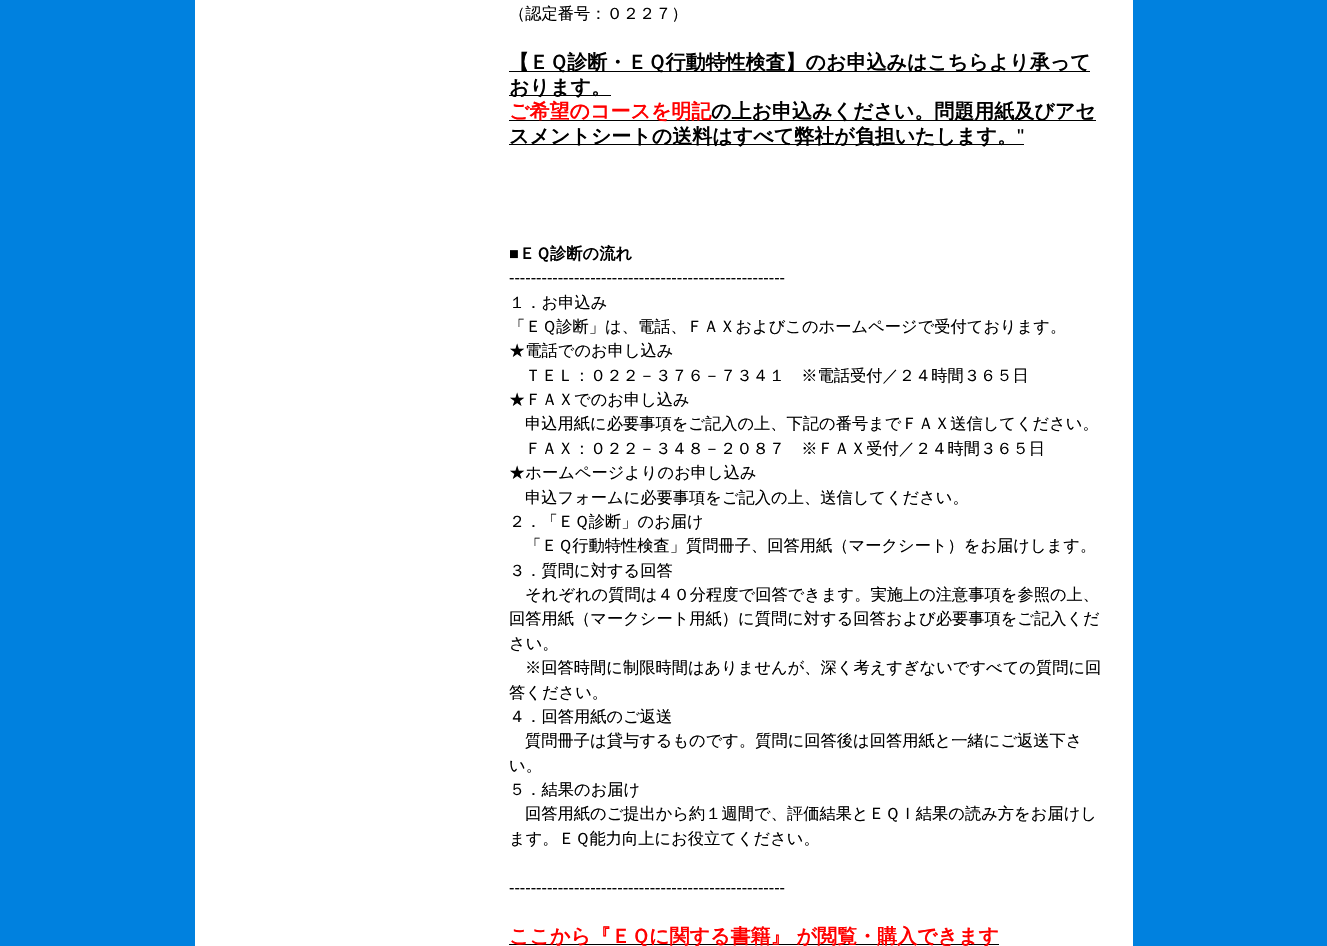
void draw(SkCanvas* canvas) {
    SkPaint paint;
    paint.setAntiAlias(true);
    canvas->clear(0xFF0081DF);
    paint.setColor(0xFFFFFFFF);
    canvas->drawRect(SkRect::MakeXYWH(195, 0, 938, 946), paint);
    SkFont font1(fontMgr->matchFamilyStyle("WenQuanYi Zen Hei", SkFontStyle(500, SkFontStyle::kNormal_Width, SkFontStyle::kUpright_Slant)), 16.25f);
    font1.setSubpixel(true);
    paint.setColor(0xFF000000);
    canvas->drawString("（認定番号：０２２７）", 509, 19, font1, paint);
    canvas->drawRect(SkRect::MakeXYWH(509, 71, 581, 1), paint);
    SkFont font2(fontMgr->matchFamilyStyle("WenQuanYi Zen Hei", SkFontStyle::Bold()), 20);
    font2.setSubpixel(true);
    canvas->drawString("【ＥＱ診断・ＥＱ行動特性検査】のお申込みはこちらより承って", 509, 69, font2, paint);
    canvas->drawRect(SkRect::MakeXYWH(509, 95, 102, 1), paint);
    canvas->drawString("おります。", 509, 94, font2, paint);
    canvas->drawRect(SkRect::MakeXYWH(509, 120, 587, 1), paint);
    paint.setColor(0xFFFF0000);
    canvas->drawString("ご希望のコースを明記", 509, 118, font2, paint);
    paint.setColor(0xFF000000);
    canvas->drawString("の上お申込みください。問題用紙及びアセ", 711, 118, font2, paint);
    canvas->drawRect(SkRect::MakeXYWH(509, 144, 515, 1), paint);
    canvas->drawString("スメントシートの送料はすべて弊社が負担いたします。", 509, 143, font2, paint);
    SkFont font3(fontMgr->matchFamilyStyle("Liberation Sans", SkFontStyle::Normal()), 20);
    font3.setSubpixel(true);
    canvas->drawString("\"", 1017, 143, font3, paint);
    SkFont font4(fontMgr->matchFamilyStyle("Liberation Sans", SkFontStyle::Bold()), 16.25f);
    font4.setSubpixel(true);
    canvas->drawString("■", 509, 259, font4, paint);
    SkFont font5(fontMgr->matchFamilyStyle("WenQuanYi Zen Hei", SkFontStyle::Bold()), 16.25f);
    font5.setSubpixel(true);
    canvas->drawString("ＥＱ診断の流れ", 519, 259, font5, paint);
    SkFont font6(fontMgr->matchFamilyStyle("Liberation Sans", SkFontStyle::Normal()), 16.25f);
    font6.setSubpixel(true);
    canvas->drawString("---------------------------------------------------", 509, 283, font6, paint);
    canvas->drawString("１．お申込み", 509, 308, font1, paint);
    canvas->drawString("「ＥＱ診断」は、電話、ＦＡＸおよびこのホームページで受付ております。", 509, 332, font1, paint);
    canvas->drawString("★電話でのお申し込み", 509, 356, font1, paint);
    canvas->drawString("ＴＥＬ：０２２－３７６－７３４１　※電話受付／２４時間３６５日", 525, 381, font1, paint);
    canvas->drawString("★ＦＡＸでのお申し込み", 509, 405, font1, paint);
    canvas->drawString("申込用紙に必要事項をご記入の上、下記の番号までＦＡＸ送信してください。", 525, 429, font1, paint);
    canvas->drawString("ＦＡＸ：０２２－３４８－２０８７　※ＦＡＸ受付／２４時間３６５日", 525, 454, font1, paint);
    canvas->drawString("★ホームページよりのお申し込み", 509, 478, font1, paint);
    canvas->drawString("申込フォームに必要事項をご記入の上、送信してください。", 525, 503, font1, paint);
    canvas->drawString("２．「ＥＱ診断」のお届け", 509, 527, font1, paint);
    canvas->drawString("「ＥＱ行動特性検査」質問冊子、回答用紙（マークシート）をお届けします。", 525, 551, font1, paint);
    canvas->drawString("３．質問に対する回答", 509, 576, font1, paint);
    canvas->drawString("それぞれの質問は４０分程度で回答できます。実施上の注意事項を参照の上、", 525, 600, font1, paint);
    canvas->drawString("回答用紙（マークシート用紙）に質問に対する回答および必要事項をご記入くだ", 509, 624, font1, paint);
    canvas->drawString("さい。", 509, 649, font1, paint);
    canvas->drawString("※回答時間に制限時間はありませんが、深く考えすぎないですべての質問に回", 525, 673, font1, paint);
    canvas->drawString("答ください。", 509, 698, font1, paint);
    canvas->drawString("４．回答用紙のご返送", 509, 722, font1, paint);
    canvas->drawString("質問冊子は貸与するものです。質問に回答後は回答用紙と一緒にご返送下さ", 525, 746, font1, paint);
    canvas->drawString("い。", 509, 771, font1, paint);
    canvas->drawString("５．結果のお届け", 509, 795, font1, paint);
    canvas->drawString("回答用紙のご提出から約１週間で、評価結果とＥＱＩ結果の読み方をお届けし", 525, 819, font1, paint);
    canvas->drawString("ます。ＥＱ能力向上にお役立てください。", 509, 844, font1, paint);
    canvas->drawString("---------------------------------------------------", 509, 893, font6, paint);
    canvas->drawRect(SkRect::MakeXYWH(509, 944, 490, 1), paint);
    paint.setColor(0xFFFF0000);
    canvas->drawString("ここから『ＥＱに関する書籍』 が閲覧・購入できます", 509, 943, font2, paint);
}
